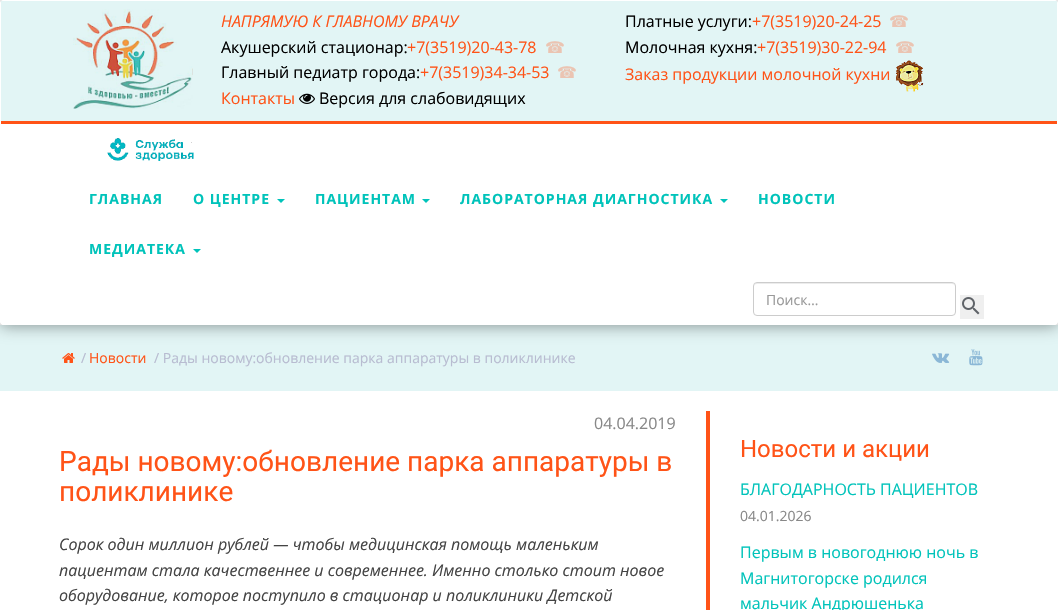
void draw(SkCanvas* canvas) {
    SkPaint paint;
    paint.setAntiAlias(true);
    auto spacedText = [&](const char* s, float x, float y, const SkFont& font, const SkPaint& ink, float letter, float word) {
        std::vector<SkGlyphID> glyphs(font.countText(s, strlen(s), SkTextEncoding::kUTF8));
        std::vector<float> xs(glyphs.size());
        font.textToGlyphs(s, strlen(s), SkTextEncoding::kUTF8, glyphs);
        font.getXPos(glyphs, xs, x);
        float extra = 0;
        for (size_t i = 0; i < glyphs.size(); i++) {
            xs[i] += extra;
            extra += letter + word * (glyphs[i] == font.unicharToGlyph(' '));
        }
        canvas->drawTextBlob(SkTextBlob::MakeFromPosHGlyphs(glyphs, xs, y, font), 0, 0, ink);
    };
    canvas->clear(0xFFFFFFFF);
    paint.setColor(0xFFE2F5F5);
    canvas->drawRect(SkRect::MakeXYWH(0, 325, 1058, 66), paint);
    canvas->save();
    canvas->clipPath(SkPathBuilder(SkPathFillType::kEvenOdd).moveTo(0, 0).lineTo(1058, 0).lineTo(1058, 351).lineTo(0, 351).close().moveTo(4, 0).lineTo(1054, 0).cubicTo(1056, 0, 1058, 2, 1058, 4).lineTo(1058, 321).cubicTo(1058, 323, 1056, 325, 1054, 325).lineTo(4, 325).cubicTo(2, 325, 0, 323, 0, 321).lineTo(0, 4).cubicTo(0, 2, 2, 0, 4, 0).close().detach(), true);
    paint.setColor(0x66000000);
    paint.setMaskFilter(SkMaskFilter::MakeBlur(kNormal_SkBlurStyle, 8));
    canvas->drawRoundRect(SkRect::MakeXYWH(0, 1, 1058, 325), 4, 4, paint);
    paint.setMaskFilter(nullptr);
    canvas->restore();
    paint.setColor(0xF2FFFFFF);
    canvas->drawRoundRect(SkRect::MakeXYWH(0, 0, 1058, 325), 4, 4, paint);
    paint.setColor(0xFFE2F5F5);
    canvas->drawRect(SkRect::MakeXYWH(1, 1, 1056, 120), paint);
    paint.setColor(0xFFFF5317);
    canvas->drawRect(SkRect::MakeXYWH(1, 121, 1056, 3), paint);
    canvas->drawImageRect(SkImages::DeferredFromEncodedData(SkData::MakeFromFileName("img1.png")), SkRect::MakeXYWH(73, 9, 120, 100), SkSamplingOptions());
    SkFont font1(fontMgr->matchFamilyStyle("Open Sans", SkFontStyle::Italic()), 16);
    font1.setSubpixel(true);
    canvas->drawString("НАПРЯМУЮ К ГЛАВНОМУ ВРАЧУ", 221, 27, font1, paint);
    SkFont font2(fontMgr->matchFamilyStyle("Open Sans", SkFontStyle::Normal()), 16);
    font2.setSubpixel(true);
    paint.setColor(0xFF000000);
    canvas->drawString("Акушерский стационар:", 221, 53, font2, paint);
    paint.setColor(0xFFFF5317);
    canvas->drawString("+7(3519)20-43-78", 407, 53, font2, paint);
    SkFont font3(fontMgr->matchFamilyStyle("DejaVu Sans", SkFontStyle::Normal()), 16);
    font3.setSubpixel(true);
    paint.setColor(0xFFEBC4B2);
    canvas->drawString("☎", 545, 53, font3, paint);
    paint.setColor(0xFF000000);
    canvas->drawString("Главный педиатр города:", 221, 78, font2, paint);
    paint.setColor(0xFFFF5317);
    canvas->drawString("+7(3519)34-34-53", 420, 78, font2, paint);
    paint.setColor(0xFFEBC4B2);
    canvas->drawString("☎", 557, 78, font3, paint);
    paint.setColor(0xFFFF5317);
    canvas->drawString("Контакты", 221, 104, font2, paint);
    canvas->drawImageRect(SkImages::DeferredFromEncodedData(SkData::MakeFromFileName("img2.png")), SkRect::MakeXYWH(299, 93, 16, 11), SkSamplingOptions());
    paint.setColor(0xFF000000);
    canvas->drawString("Версия для слабовидящих", 319, 104, font2, paint);
    canvas->drawString("Платные услуги:", 625, 27, font2, paint);
    paint.setColor(0xFFFF5317);
    canvas->drawString("+7(3519)20-24-25", 752, 27, font2, paint);
    paint.setColor(0xFFEBC4B2);
    canvas->drawString("☎", 889, 27, font3, paint);
    paint.setColor(0xFF000000);
    canvas->drawString("Молочная кухня:", 625, 53, font2, paint);
    paint.setColor(0xFFFF5317);
    canvas->drawString("+7(3519)30-22-94", 757, 53, font2, paint);
    paint.setColor(0xFFEBC4B2);
    canvas->drawString("☎", 895, 53, font3, paint);
    paint.setColor(0xFFFF5317);
    canvas->drawString("Заказ продукции молочной кухни", 625, 80, font2, paint);
    canvas->drawImageRect(SkImages::DeferredFromEncodedData(SkData::MakeFromFileName("img3.png")), SkRect::MakeXYWH(896, 60, 28, 32), SkSamplingOptions());
    canvas->drawImageRect(SkImages::DeferredFromEncodedData(SkData::MakeFromFileName("img4.png")), SkRect::MakeXYWH(107, 138, 87, 23), SkSamplingOptions());
    SkFont font4(fontMgr->matchFamilyStyle("Open Sans", SkFontStyle::Bold()), 14);
    font4.setSubpixel(true);
    paint.setColor(0xFF00C3BA);
    spacedText("ГЛАВНАЯ", 89, 204, font4, paint, 1, 0);
    spacedText("О ЦЕНТРЕ", 193, 204, font4, paint, 1, 0);
    canvas->drawPath(SkPathBuilder().moveTo(277, 199).lineTo(285, 199).lineTo(281, 203).close().detach(), paint);
    spacedText("ПАЦИЕНТАМ", 315, 204, font4, paint, 1, 0);
    canvas->drawPath(SkPathBuilder().moveTo(422, 199).lineTo(430, 199).lineTo(426, 203).close().detach(), paint);
    spacedText("ЛАБОРАТОРНАЯ ДИАГНОСТИКА", 460, 204, font4, paint, 1, 0);
    canvas->drawPath(SkPathBuilder().moveTo(720, 199).lineTo(728, 199).lineTo(724, 203).close().detach(), paint);
    spacedText("НОВОСТИ", 758, 204, font4, paint, 1, 0);
    spacedText("МЕДИАТЕКА", 89, 254, font4, paint, 1, 0);
    canvas->drawPath(SkPathBuilder().moveTo(193, 249).lineTo(201, 249).lineTo(197, 253).close().detach(), paint);
    paint.setColor(0xFFECECEC);
    canvas->drawPath(SkPathBuilder().moveTo(757, 284).lineTo(952, 284).cubicTo(954, 284, 955, 285, 955, 287).cubicTo(955, 285, 954, 283, 952, 283).lineTo(757, 283).cubicTo(755, 283, 754, 285, 754, 287).cubicTo(754, 285, 755, 284, 757, 284).close().detach(), paint);
    paint.setStyle(SkPaint::kStroke_Style);
    paint.setStrokeWidth(1);
    paint.setColor(0xFFCCCCCC);
    canvas->drawRoundRect(SkRect::MakeXYWH(753.5f, 282.5f, 202, 33), 3.5f, 3.5f, paint);
    SkFont font5(fontMgr->matchFamilyStyle("Open Sans", SkFontStyle::Normal()), 14);
    font5.setSubpixel(true);
    paint.setStyle(SkPaint::kFill_Style);
    paint.setColor(0xFF999999);
    canvas->drawString("Поиск…", 766, 305, font5, paint);
    paint.setColor(0xFFEFEFEF);
    canvas->drawRect(SkRect::MakeXYWH(960, 295, 24, 24), paint);
    canvas->drawImageRect(SkImages::DeferredFromEncodedData(SkData::MakeFromFileName("img5.png")), SkRect::MakeXYWH(962, 297, 18, 18), SkSamplingOptions());
    canvas->drawImageRect(SkImages::DeferredFromEncodedData(SkData::MakeFromFileName("img6.png")), SkRect::MakeXYWH(62, 353, 13, 10), SkSamplingOptions());
    paint.setColor(0xFFB8BCD1);
    canvas->drawString("/", 81, 363, font5, paint);
    paint.setColor(0xFFFF5317);
    canvas->drawString("Новости", 89, 363, font5, paint);
    paint.setColor(0xFFB8BCD1);
    canvas->drawString("/ Рады новому:обновление парка аппаратуры в поликлинике", 154, 363, font5, paint);
    canvas->drawImageRect(SkImages::DeferredFromEncodedData(SkData::MakeFromFileName("img7.png")), SkRect::MakeXYWH(932, 353, 18, 10), SkSamplingOptions());
    canvas->drawImageRect(SkImages::DeferredFromEncodedData(SkData::MakeFromFileName("img8.png")), SkRect::MakeXYWH(969, 349, 14, 17), SkSamplingOptions());
    paint.setColor(0xFF888888);
    canvas->drawString("04.04.2019", 594, 429, font2, paint);
    SkFont font6(fontMgr->matchFamilyStyle("Roboto", SkFontStyle::Normal()), 28);
    font6.setSubpixel(true);
    paint.setColor(0xFFFF5317);
    canvas->drawString("Рады новому:обновление парка аппаратуры в", 59, 471, font6, paint);
    canvas->drawString("поликлинике", 59, 501, font6, paint);
    paint.setColor(0xFF444444);
    canvas->drawString("Сорок один миллион рублей — чтобы медицинская помощь маленьким", 59, 550, font1, paint);
    canvas->drawString("пациентам стала качественнее и современнее. Именно столько стоит новое", 59, 576, font1, paint);
    canvas->drawString("оборудование, которое поступило в стационар и поликлиники Детской", 59, 601, font1, paint);
    paint.setColor(0xFFFF5317);
    canvas->drawRect(SkRect::MakeXYWH(706, 411, 4, 199), paint);
    SkFont font7(fontMgr->matchFamilyStyle("Roboto", SkFontStyle::Normal()), 24);
    font7.setSubpixel(true);
    canvas->drawString("Новости и акции", 740, 457, font7, paint);
    paint.setColor(0xFF00C3BA);
    canvas->drawString("БЛАГОДАРНОСТЬ ПАЦИЕНТОВ", 740, 495, font2, paint);
    paint.setColor(0xFF888888);
    canvas->drawString("04.01.2026", 740, 521, font5, paint);
    paint.setColor(0xFF00C3BA);
    canvas->drawString("Первым в новогоднюю ночь в", 740, 558, font2, paint);
    canvas->drawString("Магнитогорске родился", 740, 584, font2, paint);
    canvas->drawString("мальчик Андрюшенька", 740, 609, font2, paint);
}
